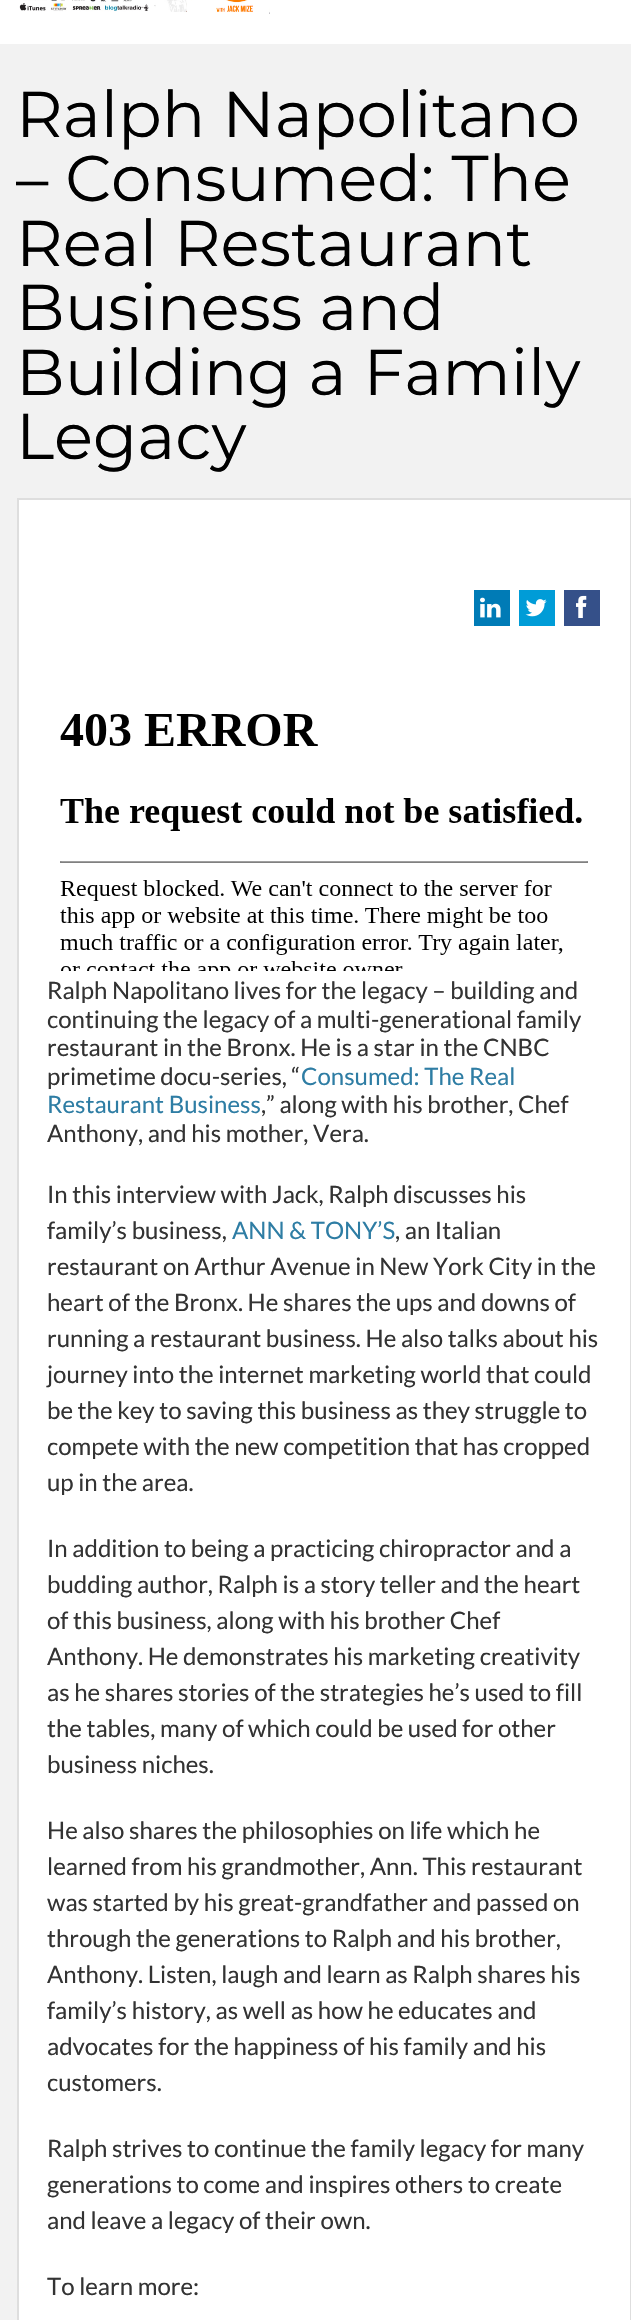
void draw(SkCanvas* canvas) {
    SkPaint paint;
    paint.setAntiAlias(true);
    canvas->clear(0xFFF2F2F2);
    paint.setColor(0xFFFFFFFF);
    canvas->drawRect(SkRect::MakeXYWH(0, 0, 631, 44), paint);
    canvas->drawImageRect(SkImages::DeferredFromEncodedData(SkData::MakeFromFileName("img1.png")), SkRect::MakeXYWH(19, 0, 251, 14), SkSamplingOptions());
    SkFont font1(fontMgr->matchFamilyStyle("Montserrat", SkFontStyle::Normal()), 64.5f);
    font1.setSubpixel(true);
    paint.setColor(0xFF000000);
    canvas->drawString("Ralph Napolitano", 16, 137, font1, paint);
    canvas->drawString("– Consumed: The", 16, 201, font1, paint);
    canvas->drawString("Real Restaurant", 16, 266, font1, paint);
    canvas->drawString("Business and", 16, 330, font1, paint);
    canvas->drawString("Building a Family", 16, 395, font1, paint);
    canvas->drawString("Legacy", 16, 459, font1, paint);
    paint.setColor(0xFFFFFFFF);
    canvas->drawRect(SkRect::MakeXYWH(18, 499, 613, 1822), paint);
    paint.setStyle(SkPaint::kStroke_Style);
    paint.setStrokeWidth(2);
    paint.setColor(0xFFDEDEDE);
    canvas->drawRect(SkRect::MakeXYWH(18, 499, 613, 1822), paint);
    paint.setStyle(SkPaint::kFill_Style);
    paint.setColor(0xFF007BB6);
    canvas->drawRect(SkRect::MakeXYWH(474, 590, 36, 36), paint);
    canvas->drawImageRect(SkImages::DeferredFromEncodedData(SkData::MakeFromFileName("img2.png")), SkRect::MakeXYWH(480, 597, 21, 21), SkSamplingOptions());
    paint.setColor(0xFF009CD7);
    canvas->drawRect(SkRect::MakeXYWH(519, 590, 36, 36), paint);
    canvas->drawImageRect(SkImages::DeferredFromEncodedData(SkData::MakeFromFileName("img3.png")), SkRect::MakeXYWH(525, 599, 22, 18), SkSamplingOptions());
    paint.setColor(0xFF355089);
    canvas->drawRect(SkRect::MakeXYWH(564, 590, 36, 36), paint);
    canvas->drawImageRect(SkImages::DeferredFromEncodedData(SkData::MakeFromFileName("img4.png")), SkRect::MakeXYWH(576, 595, 11, 23), SkSamplingOptions());
    canvas->drawImageRect(SkImages::DeferredFromEncodedData(SkData::MakeFromFileName("img5.png")), SkRect::MakeXYWH(60, 714, 528, 257), SkSamplingOptions());
    SkFont font2(fontMgr->matchFamilyStyle("Lato", SkFontStyle::Normal()), 24);
    font2.setSubpixel(true);
    paint.setColor(0xFF333333);
    canvas->drawString("Ralph Napolitano lives for the legacy – building and", 47, 999, font2, paint);
    canvas->drawString("continuing the legacy of a multi-generational family", 47, 1028, font2, paint);
    canvas->drawString("restaurant in the Bronx. He is a star in the CNBC", 47, 1056, font2, paint);
    canvas->drawString("primetime docu-series, “", 47, 1085, font2, paint);
    paint.setColor(0xFF2E7DA4);
    canvas->drawString("Consumed: The Real", 301, 1085, font2, paint);
    canvas->drawString("Restaurant Business", 47, 1113, font2, paint);
    paint.setColor(0xFF333333);
    canvas->drawString(",” along with his brother, Chef", 261, 1113, font2, paint);
    canvas->drawString("Anthony, and his mother, Vera.", 47, 1142, font2, paint);
    canvas->drawString("In this interview with Jack, Ralph discusses his", 47, 1203, font2, paint);
    canvas->drawString("family’s business,", 47, 1239, font2, paint);
    paint.setColor(0xFF2E7DA4);
    canvas->drawString("ANN & TONY’S", 232, 1239, font2, paint);
    paint.setColor(0xFF333333);
    canvas->drawString(", an Italian", 395, 1239, font2, paint);
    canvas->drawString("restaurant on Arthur Avenue in New York City in the", 47, 1275, font2, paint);
    canvas->drawString("heart of the Bronx. He shares the ups and downs of", 47, 1311, font2, paint);
    canvas->drawString("running a restaurant business. He also talks about his", 47, 1347, font2, paint);
    canvas->drawString("journey into the internet marketing world that could", 47, 1383, font2, paint);
    canvas->drawString("be the key to saving this business as they struggle to", 47, 1419, font2, paint);
    canvas->drawString("compete with the new competition that has cropped", 47, 1455, font2, paint);
    canvas->drawString("up in the area.", 47, 1491, font2, paint);
    canvas->drawString("In addition to being a practicing chiropractor and a", 47, 1557, font2, paint);
    canvas->drawString("budding author, Ralph is a story teller and the heart", 47, 1593, font2, paint);
    canvas->drawString("of this business, along with his brother Chef", 47, 1629, font2, paint);
    canvas->drawString("Anthony. He demonstrates his marketing creativity", 47, 1665, font2, paint);
    canvas->drawString("as he shares stories of the strategies he’s used to fill", 47, 1701, font2, paint);
    canvas->drawString("the tables, many of which could be used for other", 47, 1737, font2, paint);
    canvas->drawString("business niches.", 47, 1773, font2, paint);
    canvas->drawString("He also shares the philosophies on life which he", 47, 1839, font2, paint);
    canvas->drawString("learned from his grandmother, Ann. This restaurant", 47, 1875, font2, paint);
    canvas->drawString("was started by his great-grandfather and passed on", 47, 1911, font2, paint);
    canvas->drawString("through the generations to Ralph and his brother,", 47, 1947, font2, paint);
    canvas->drawString("Anthony. Listen, laugh and learn as Ralph shares his", 47, 1983, font2, paint);
    canvas->drawString("family’s history, as well as how he educates and", 47, 2019, font2, paint);
    canvas->drawString("advocates for the happiness of his family and his", 47, 2055, font2, paint);
    canvas->drawString("customers.", 47, 2091, font2, paint);
    canvas->drawString("Ralph strives to continue the family legacy for many", 47, 2157, font2, paint);
    canvas->drawString("generations to come and inspires others to create", 47, 2193, font2, paint);
    canvas->drawString("and leave a legacy of their own.", 47, 2229, font2, paint);
    canvas->drawString("To learn more:", 47, 2295, font2, paint);
}
